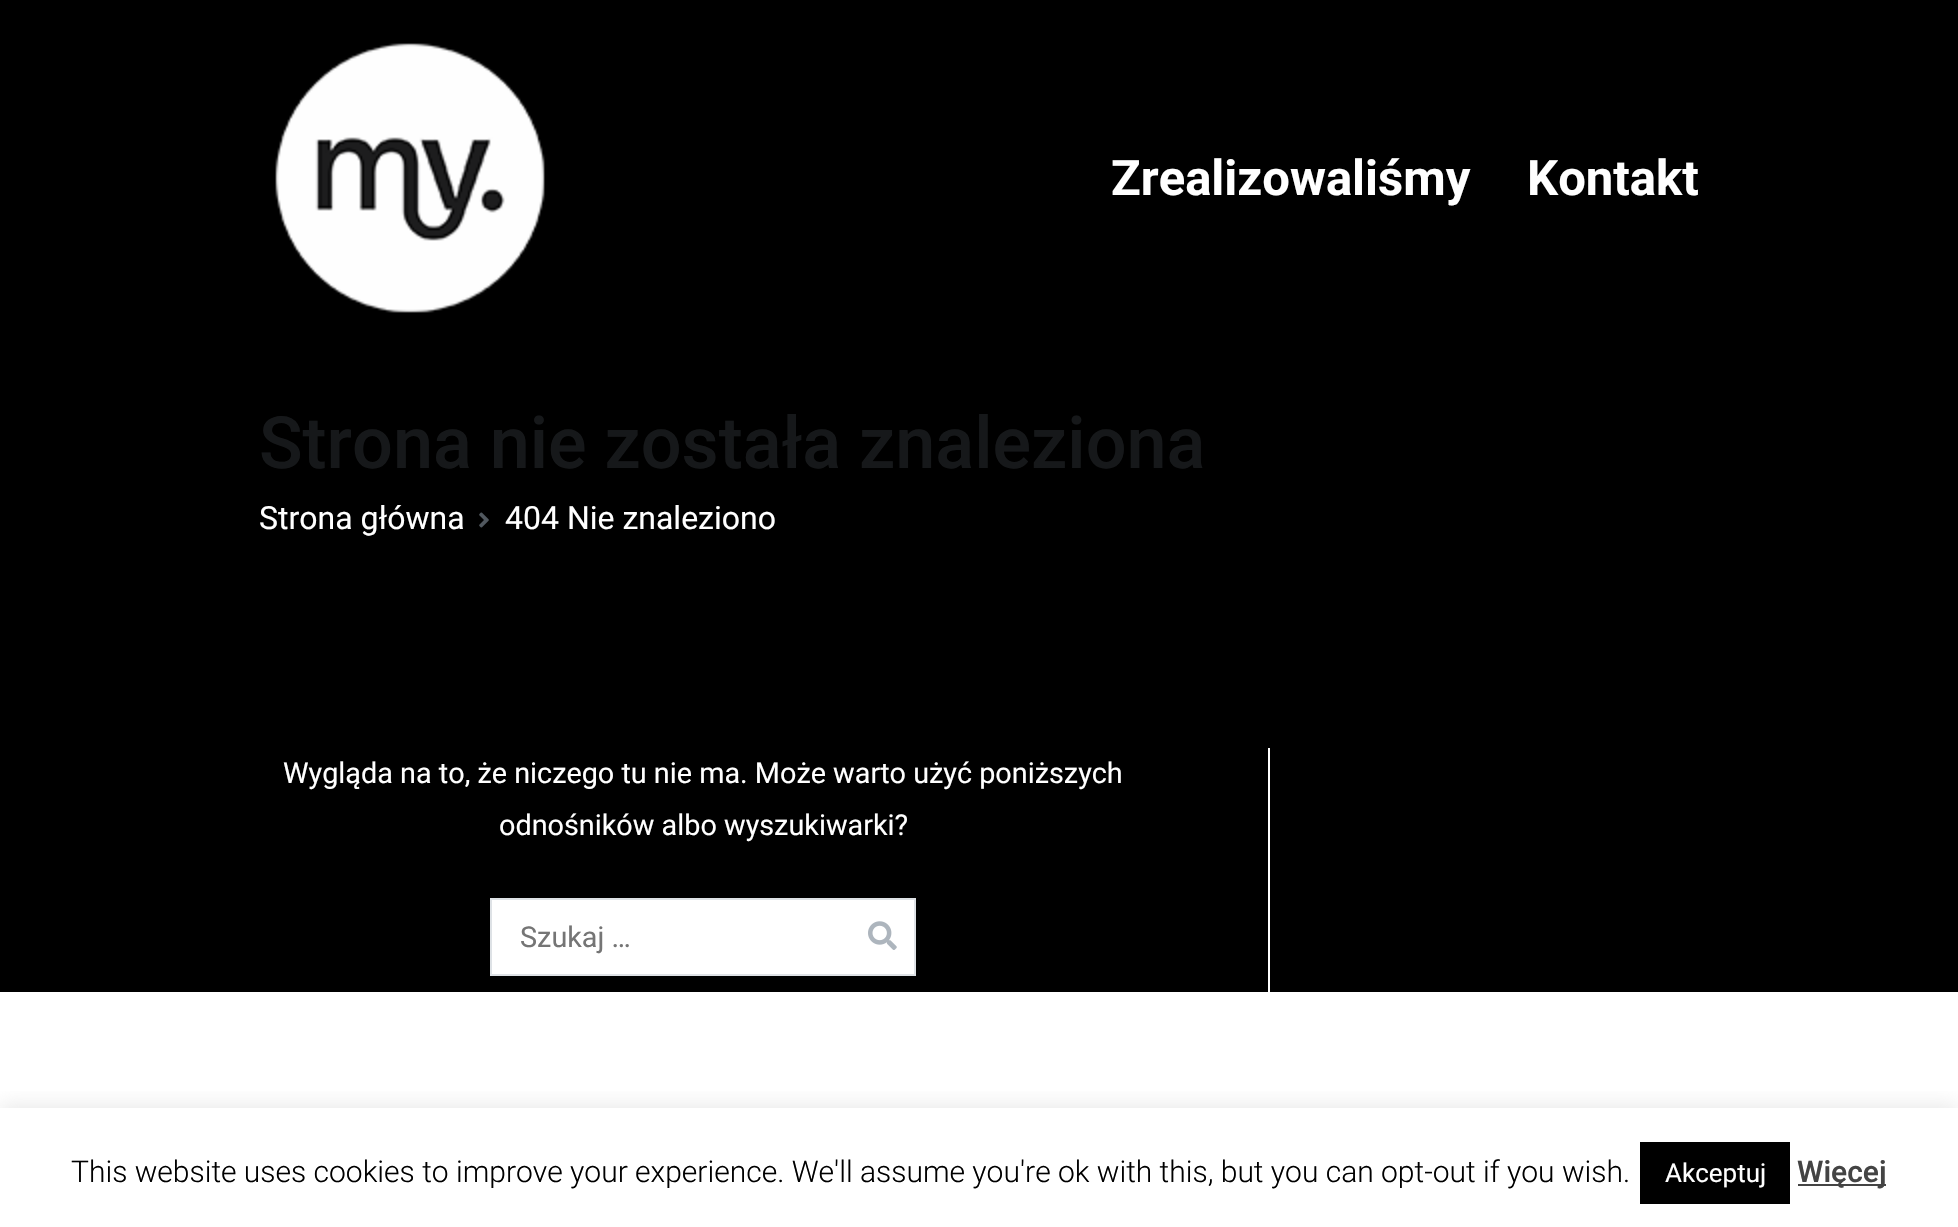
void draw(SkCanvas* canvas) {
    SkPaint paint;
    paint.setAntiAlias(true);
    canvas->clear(0xFFFFFFFF);
    paint.setColor(0xFF000000);
    canvas->drawRect(SkRect::MakeXYWH(0, 0, 1958, 992), paint);
    canvas->drawImageRect(SkImages::DeferredFromEncodedData(SkData::MakeFromFileName("img1.png")), SkRect::MakeXYWH(275, 43, 270, 270), SkSamplingOptions());
    SkFont font1(fontMgr->matchFamilyStyle("Roboto", SkFontStyle::Bold()), 49);
    font1.setSubpixel(true);
    paint.setColor(0xFFFFFFFF);
    canvas->drawString("Zrealizowaliśmy", 1111, 195, font1, paint);
    canvas->drawString("Kontakt", 1527, 195, font1, paint);
    SkFont font2(fontMgr->matchFamilyStyle("Roboto", SkFontStyle(500, SkFontStyle::kNormal_Width, SkFontStyle::kUpright_Slant)), 72);
    font2.setSubpixel(true);
    paint.setColor(0xFF16181A);
    canvas->drawString("Strona nie została znaleziona", 259, 468, font2, paint);
    SkFont font3(fontMgr->matchFamilyStyle("Roboto", SkFontStyle::Normal()), 32);
    font3.setSubpixel(true);
    paint.setColor(0xFFFFFFFF);
    canvas->drawString("Strona główna", 259, 529, font3, paint);
    canvas->drawImageRect(SkImages::DeferredFromEncodedData(SkData::MakeFromFileName("img2.png")), SkRect::MakeXYWH(479, 512, 10, 16), SkSamplingOptions());
    canvas->drawString("404 Nie znaleziono", 505, 529, font3, paint);
    SkFont font4(fontMgr->matchFamilyStyle("Roboto", SkFontStyle::Normal()), 28.8f);
    font4.setSubpixel(true);
    canvas->drawString("Wygląda na to, że niczego tu nie ma. Może warto użyć poniższych", 283, 783, font4, paint);
    canvas->drawString("odnośników albo wyszukiwarki?", 499, 835, font4, paint);
    canvas->drawRect(SkRect::MakeXYWH(491, 899, 424, 76), paint);
    paint.setStyle(SkPaint::kStroke_Style);
    paint.setStrokeWidth(2);
    paint.setColor(0xFFDEE2E6);
    canvas->drawRect(SkRect::MakeXYWH(491, 899, 424, 76), paint);
    paint.setStyle(SkPaint::kFill_Style);
    paint.setColor(0xFF757575);
    canvas->drawString("Szukaj …", 520, 947, font4, paint);
    canvas->drawImageRect(SkImages::DeferredFromEncodedData(SkData::MakeFromFileName("img3.png")), SkRect::MakeXYWH(868, 921, 29, 29), SkSamplingOptions());
    paint.setColor(0xFFFFFFFF);
    canvas->drawRect(SkRect::MakeXYWH(1268, 748, 2, 244), paint);
    canvas->save();
    canvas->clipRect(SkRect::MakeXYWH(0, 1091, 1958, 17));
    paint.setColor(0x4DACABAB);
    paint.setMaskFilter(SkMaskFilter::MakeBlur(kNormal_SkBlurStyle, 10));
    canvas->drawRect(SkRect::MakeXYWH(0, 1106, 1958, 120), paint);
    paint.setMaskFilter(nullptr);
    canvas->restore();
    SkFont font5(fontMgr->matchFamilyStyle("Roboto", SkFontStyle(300, SkFontStyle::kNormal_Width, SkFontStyle::kUpright_Slant)), 30);
    font5.setSubpixel(true);
    paint.setColor(0xFF000000);
    canvas->drawString("This website uses cookies to improve your experience. We'll assume you're ok with this, but you can opt-out if you wish.", 71, 1182, font5, paint);
    canvas->drawRect(SkRect::MakeXYWH(1640, 1142, 150, 62), paint);
    SkFont font6(fontMgr->matchFamilyStyle("Roboto", SkFontStyle::Normal()), 26);
    font6.setSubpixel(true);
    paint.setColor(0xFFFFFFFF);
    canvas->drawString("Akceptuj", 1665, 1182, font6, paint);
    paint.setColor(0xFF444444);
    canvas->drawRect(SkRect::MakeXYWH(1798, 1184, 88, 2), paint);
    SkFont font7(fontMgr->matchFamilyStyle("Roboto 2", SkFontStyle(500, SkFontStyle::kNormal_Width, SkFontStyle::kUpright_Slant)), 30);
    font7.setSubpixel(true);
    canvas->drawString("Więcej", 1797, 1182, font7, paint);
}
